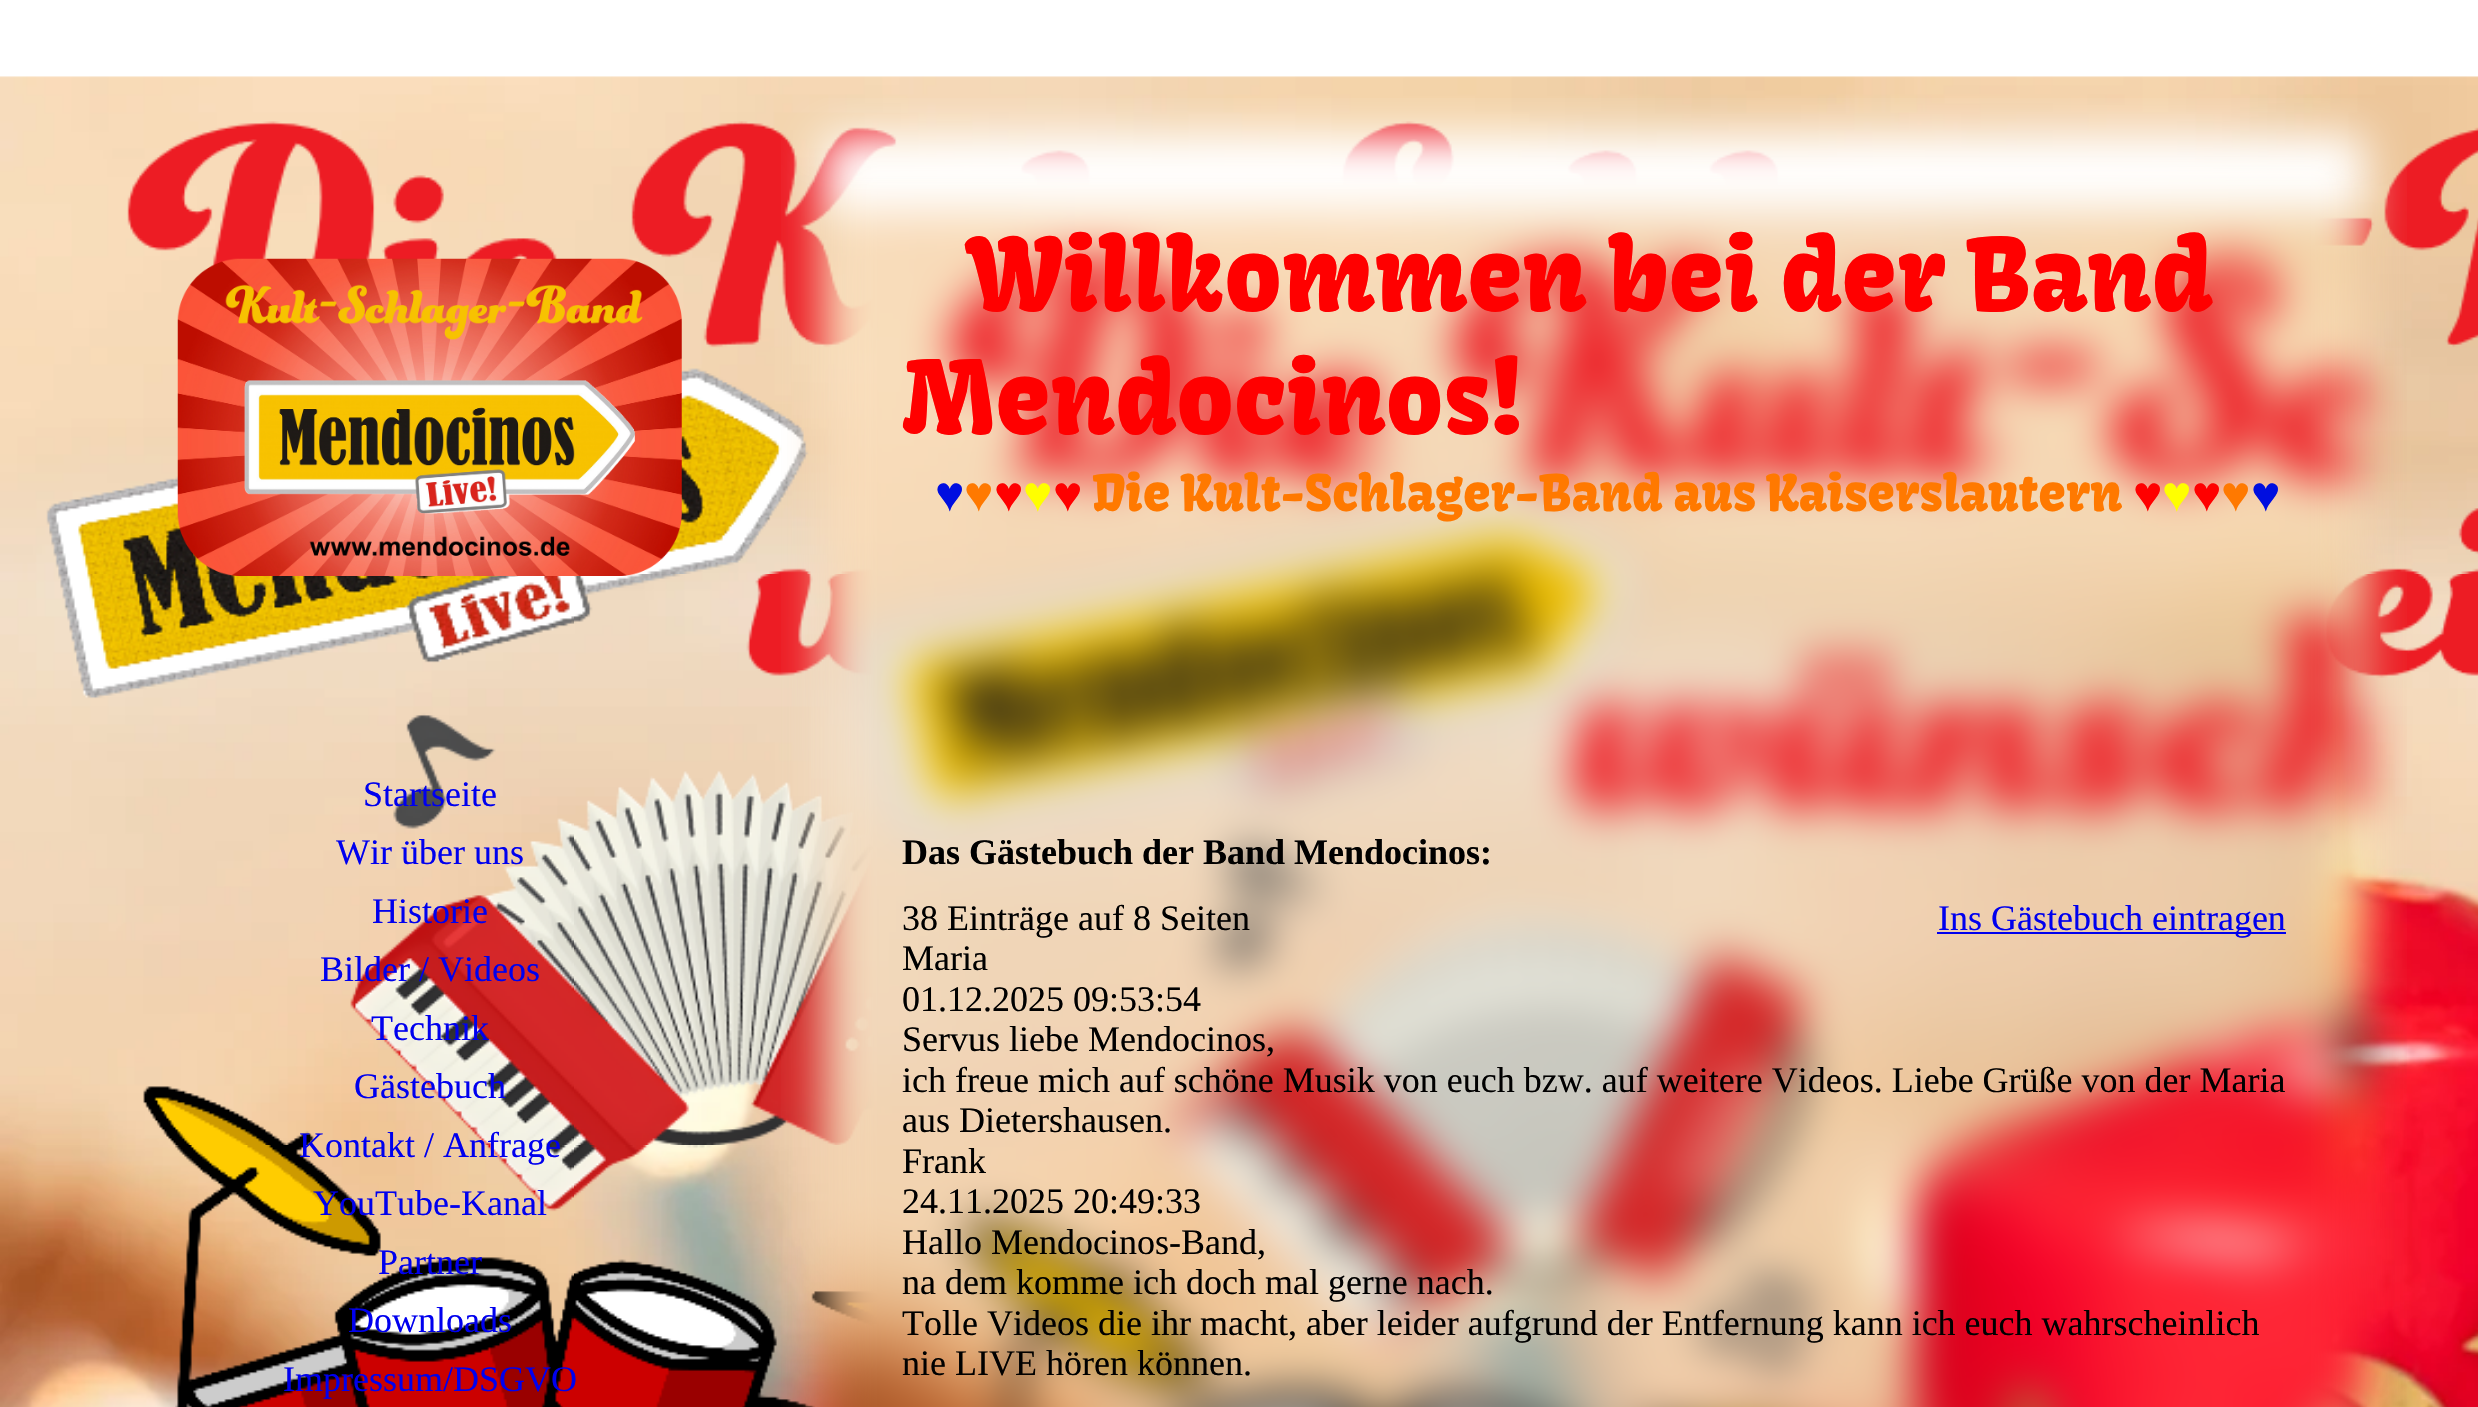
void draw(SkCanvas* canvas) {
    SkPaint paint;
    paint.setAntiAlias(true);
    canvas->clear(0xFFFFFFFF);
    canvas->drawImageRect(SkImages::DeferredFromEncodedData(SkData::MakeFromFileName("img1.png")), SkRect::MakeXYWH(0, 76, 2478, 1331), SkSamplingOptions());
    canvas->drawImageRect(SkImages::DeferredFromEncodedData(SkData::MakeFromFileName("img2.png")), SkRect::MakeXYWH(177, 258, 505, 318), SkSamplingOptions());
    SkFont font1(fontMgr->matchFamilyStyle("Liberation Serif", SkFontStyle::Normal()), 36);
    font1.setSubpixel(true);
    paint.setColor(0xFF0000EE);
    canvas->drawString("Startseite", 363, 806, font1, paint);
    canvas->drawString("Wir über uns", 336, 864, font1, paint);
    canvas->drawString("Historie", 372, 923, font1, paint);
    canvas->drawString("Bilder / Videos", 320, 981, font1, paint);
    canvas->drawString("Technik", 371, 1040, font1, paint);
    canvas->drawString("Gästebuch", 354, 1098, font1, paint);
    canvas->drawString("Kontakt / Anfrage", 299, 1157, font1, paint);
    canvas->drawString("YouTube-Kanal", 313, 1215, font1, paint);
    canvas->drawString("Partner", 378, 1274, font1, paint);
    canvas->drawString("Downloads", 348, 1332, font1, paint);
    canvas->drawString("Impressum/DSGVO", 283, 1391, font1, paint);
    canvas->drawImageRect(SkImages::DeferredFromEncodedData(SkData::MakeFromFileName("img3.png")), SkRect::MakeXYWH(781, 98, 1626, 1309), SkSamplingOptions());
    SkFont font2(fontMgr->matchFamilyStyle("Kavoon", SkFontStyle::Normal()), 99.25f);
    font2.setSubpixel(true);
    paint.setColor(0xFFFF0000);
    canvas->drawString("Willkommen bei der Band", 968, 311, font2, paint);
    canvas->drawString("Mendocinos!", 902, 434, font2, paint);
    SkFont font3(fontMgr->matchFamilyStyle("Liberation Serif", SkFontStyle::Normal()), 49.6f);
    font3.setSubpixel(true);
    paint.setColor(0xFF000EE0);
    canvas->drawString("♥", 935, 511, font3, paint);
    paint.setColor(0xFFFF7900);
    canvas->drawString("♥", 964, 511, font3, paint);
    paint.setColor(0xFFFF0000);
    canvas->drawString("♥", 994, 511, font3, paint);
    paint.setColor(0xFFFFFF00);
    canvas->drawString("♥", 1023, 511, font3, paint);
    paint.setColor(0xFFFF0000);
    canvas->drawString("♥", 1053, 511, font3, paint);
    SkFont font4(fontMgr->matchFamilyStyle("Kavoon", SkFontStyle::Normal()), 49.6f);
    font4.setSubpixel(true);
    paint.setColor(0xFFFF7900);
    canvas->drawString("Die Kult-Schlager-Band aus Kaiserslautern", 1093, 511, font4, paint);
    paint.setColor(0xFFFF0000);
    canvas->drawString("♥", 2133, 511, font3, paint);
    paint.setColor(0xFFFFFF00);
    canvas->drawString("♥", 2162, 511, font3, paint);
    paint.setColor(0xFFFF0000);
    canvas->drawString("♥", 2192, 511, font3, paint);
    paint.setColor(0xFFFF7900);
    canvas->drawString("♥", 2221, 511, font3, paint);
    paint.setColor(0xFF000EE0);
    canvas->drawString("♥", 2251, 511, font3, paint);
    SkFont font5(fontMgr->matchFamilyStyle("Liberation Serif", SkFontStyle::Bold()), 36);
    font5.setSubpixel(true);
    paint.setColor(0xFF000000);
    canvas->drawString("Das Gästebuch der Band Mendocinos:", 902, 864, font5, paint);
    canvas->drawString("38 Einträge auf 8 Seiten", 902, 930, font1, paint);
    paint.setColor(0xFF0000EE);
    canvas->drawRect(SkRect::MakeXYWH(1937, 932, 349, 2), paint);
    canvas->drawString("Ins Gästebuch eintragen", 1938, 930, font1, paint);
    paint.setColor(0xFF000000);
    canvas->drawString("Maria", 902, 970, font1, paint);
    canvas->drawString("01.12.2025 09:53:54", 902, 1011, font1, paint);
    canvas->drawString("Servus liebe Mendocinos,", 902, 1051, font1, paint);
    canvas->drawString("ich freue mich auf schöne Musik von euch bzw. auf weitere Videos. Liebe Grüße von der Maria", 902, 1092, font1, paint);
    canvas->drawString("aus Dietershausen.", 902, 1132, font1, paint);
    canvas->drawString("Frank", 902, 1173, font1, paint);
    canvas->drawString("24.11.2025 20:49:33", 902, 1213, font1, paint);
    canvas->drawString("Hallo Mendocinos-Band,", 902, 1254, font1, paint);
    canvas->drawString("na dem komme ich doch mal gerne nach.", 902, 1294, font1, paint);
    canvas->drawString("Tolle Videos die ihr macht, aber leider aufgrund der Entfernung kann ich euch wahrscheinlich", 902, 1335, font1, paint);
    canvas->drawString("nie LIVE hören können.", 902, 1375, font1, paint);
}
